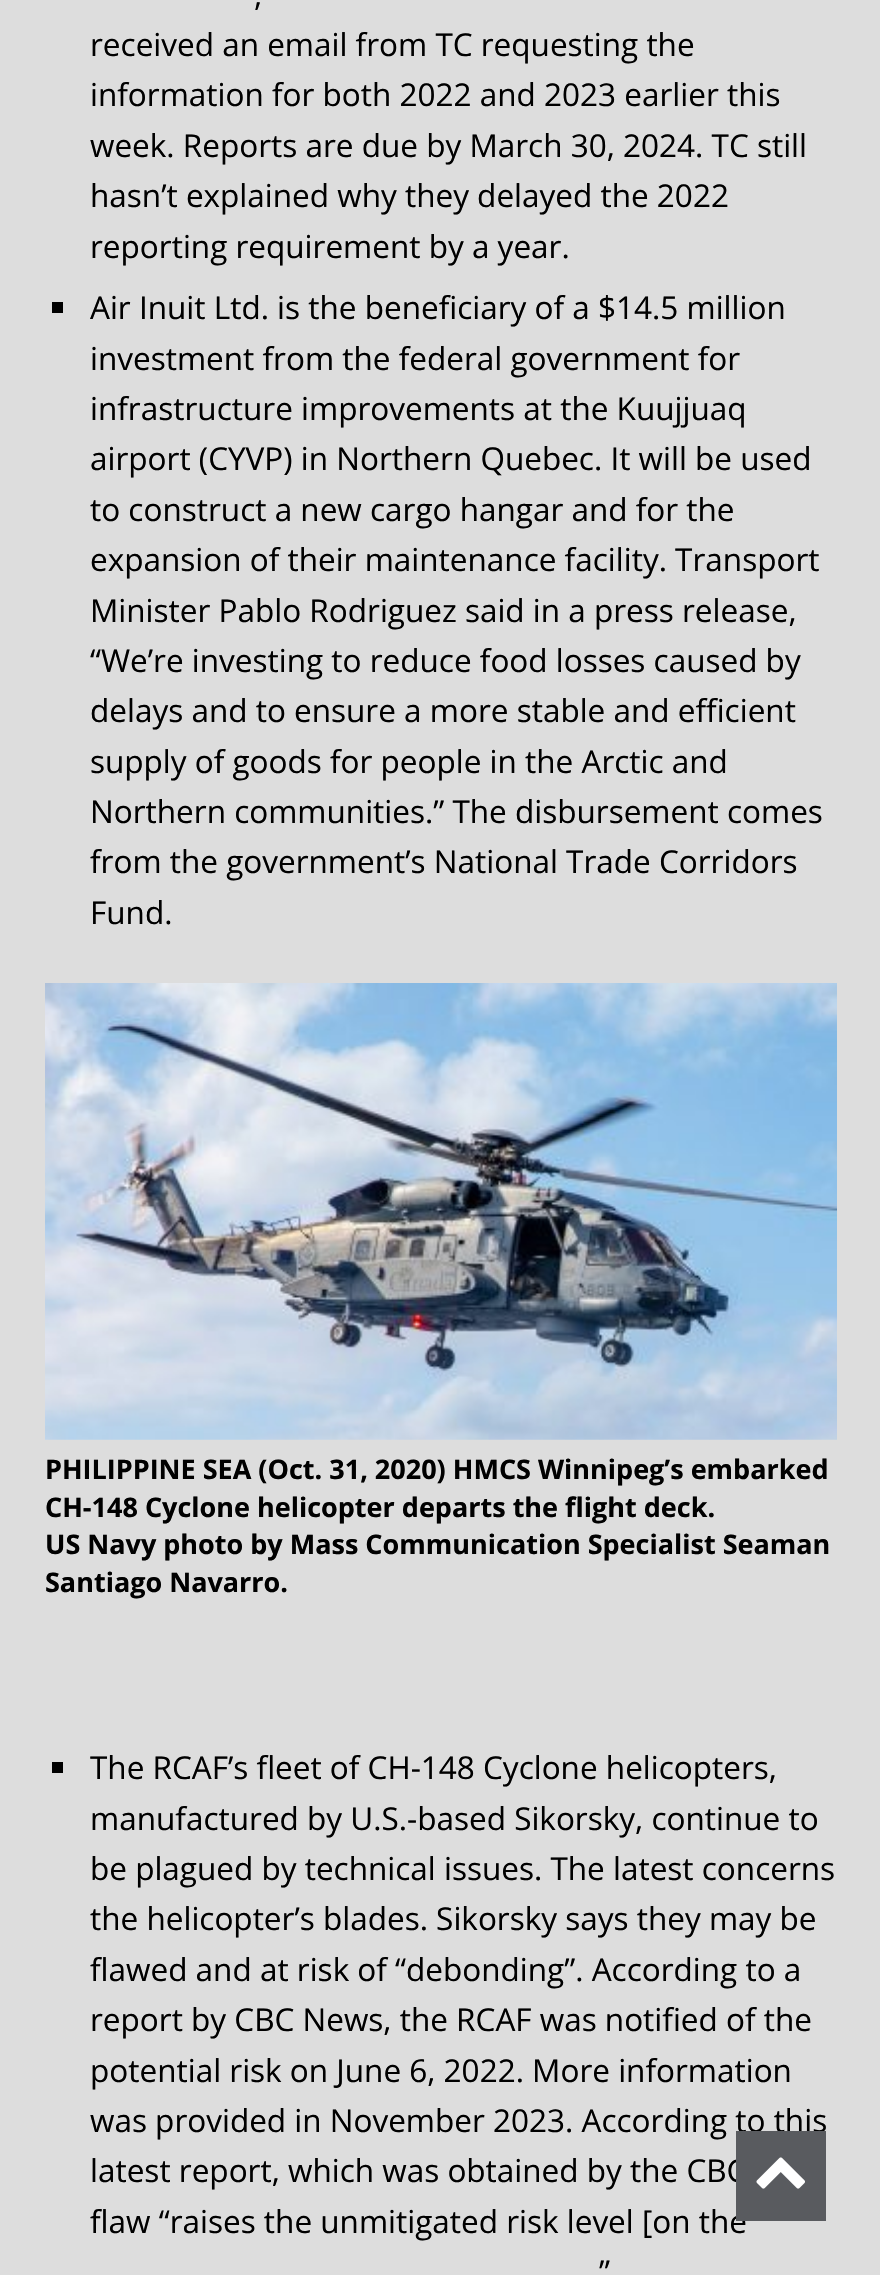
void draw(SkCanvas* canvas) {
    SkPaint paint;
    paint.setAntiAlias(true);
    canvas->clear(0xFFDDDDDD);
    SkFont font1(fontMgr->matchFamilyStyle("Open Sans", SkFontStyle::Normal()), 31.5f);
    font1.setSubpixel(true);
    paint.setColor(0xFF000000);
    canvas->drawString(",", 254, 6, font1, paint);
    canvas->drawString("received an email from TC requesting the", 90, 56, font1, paint);
    canvas->drawString("information for both 2022 and 2023 earlier this", 90, 106, font1, paint);
    canvas->drawString("week. Reports are due by March 30, 2024. TC still", 90, 157, font1, paint);
    canvas->drawString("hasn’t explained why they delayed the 2022", 90, 207, font1, paint);
    canvas->drawString("reporting requirement by a year.", 90, 258, font1, paint);
    canvas->drawRect(SkRect::MakeXYWH(52, 302, 11, 11), paint);
    canvas->drawString("Air Inuit Ltd. is the beneficiary of a $14.5 million", 90, 319, font1, paint);
    canvas->drawString("investment from the federal government for", 90, 370, font1, paint);
    canvas->drawString("infrastructure improvements at the Kuujjuaq", 90, 420, font1, paint);
    canvas->drawString("airport (CYVP) in Northern Quebec. It will be used", 90, 470, font1, paint);
    canvas->drawString("to construct a new cargo hangar and for the", 90, 521, font1, paint);
    canvas->drawString("expansion of their maintenance facility. Transport", 90, 571, font1, paint);
    canvas->drawString("Minister Pablo Rodriguez said in a press release,", 90, 622, font1, paint);
    canvas->drawString("“We’re investing to reduce food losses caused by", 90, 672, font1, paint);
    canvas->drawString("delays and to ensure a more stable and efficient", 90, 722, font1, paint);
    canvas->drawString("supply of goods for people in the Arctic and", 90, 773, font1, paint);
    canvas->drawString("Northern communities.” The disbursement comes", 90, 823, font1, paint);
    canvas->drawString("from the government’s National Trade Corridors", 90, 873, font1, paint);
    canvas->drawString("Fund.", 90, 924, font1, paint);
    canvas->drawImageRect(SkImages::DeferredFromEncodedData(SkData::MakeFromFileName("img1.png")), SkRect::MakeXYWH(45, 983, 792, 457), SkSamplingOptions());
    SkFont font2(fontMgr->matchFamilyStyle("Open Sans", SkFontStyle::Bold()), 27);
    font2.setSubpixel(true);
    canvas->drawString("PHILIPPINE SEA (Oct. 31, 2020) HMCS Winnipeg’s embarked", 45, 1479, font2, paint);
    canvas->drawString("CH-148 Cyclone helicopter departs the flight deck.", 45, 1517, font2, paint);
    canvas->drawString("US Navy photo by Mass Communication Specialist Seaman", 45, 1554, font2, paint);
    canvas->drawString("Santiago Navarro.", 45, 1592, font2, paint);
    canvas->drawRect(SkRect::MakeXYWH(52, 1762, 11, 11), paint);
    canvas->drawString("The RCAF’s fleet of CH-148 Cyclone helicopters,", 90, 1779, font1, paint);
    canvas->drawString("manufactured by U.S.-based Sikorsky, continue to", 90, 1830, font1, paint);
    canvas->drawString("be plagued by technical issues. The latest concerns", 90, 1880, font1, paint);
    canvas->drawString("the helicopter’s blades. Sikorsky says they may be", 90, 1930, font1, paint);
    canvas->drawString("flawed and at risk of “debonding”. According to a", 90, 1981, font1, paint);
    canvas->drawString("report by CBC News, the RCAF was notified of the", 90, 2031, font1, paint);
    canvas->drawString("potential risk on June 6, 2022. More information", 90, 2082, font1, paint);
    canvas->drawString("was provided in November 2023. According to this", 90, 2132, font1, paint);
    canvas->drawString("latest report, which was obtained by the CBC", 90, 2182, font1, paint);
    canvas->drawString("flaw “raises the unmitigated risk level [on the", 90, 2233, font1, paint);
    canvas->drawString("”", 599, 2283, font1, paint);
    paint.setColor(0xFF595B5F);
    canvas->drawRect(SkRect::MakeXYWH(736, 2131, 90, 90), paint);
    canvas->drawImageRect(SkImages::DeferredFromEncodedData(SkData::MakeFromFileName("img2.png")), SkRect::MakeXYWH(756, 2157, 49, 32), SkSamplingOptions());
}
